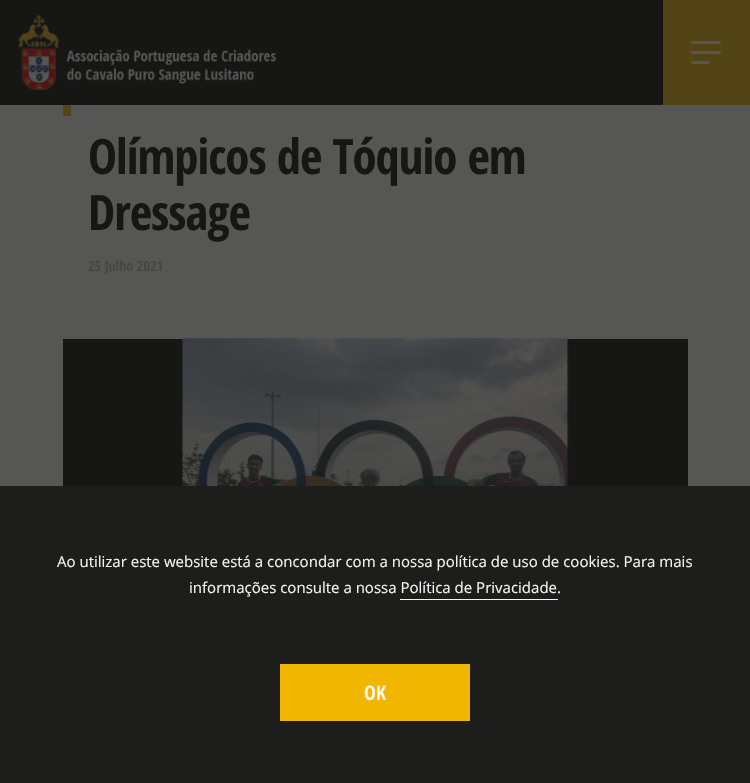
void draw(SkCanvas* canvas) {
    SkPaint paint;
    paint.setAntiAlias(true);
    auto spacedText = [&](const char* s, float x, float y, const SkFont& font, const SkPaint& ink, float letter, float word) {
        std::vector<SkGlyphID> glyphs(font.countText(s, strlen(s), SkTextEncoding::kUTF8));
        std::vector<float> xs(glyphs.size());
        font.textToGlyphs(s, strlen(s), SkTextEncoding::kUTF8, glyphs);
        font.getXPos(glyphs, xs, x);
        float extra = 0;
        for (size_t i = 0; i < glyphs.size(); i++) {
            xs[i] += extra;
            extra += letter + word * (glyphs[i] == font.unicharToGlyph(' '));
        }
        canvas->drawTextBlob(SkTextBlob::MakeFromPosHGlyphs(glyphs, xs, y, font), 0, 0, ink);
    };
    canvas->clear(0xFF565654);
    paint.setColor(0xFF161615);
    canvas->drawRect(SkRect::MakeXYWH(0, 0, 663, 105), paint);
    canvas->drawImageRect(SkImages::DeferredFromEncodedData(SkData::MakeFromFileName("img1.png")), SkRect::MakeXYWH(18, 15, 259, 75), SkSamplingOptions());
    paint.setColor(0xFF524414);
    canvas->drawRect(SkRect::MakeXYWH(663, 0, 87, 105), paint);
    paint.setColor(0xFF565654);
    canvas->drawRoundRect(SkRect::MakeXYWH(691, 41, 30, 3), 1.5f, 1.5f, paint);
    canvas->drawRoundRect(SkRect::MakeXYWH(691, 51, 30, 3), 1.5f, 1.5f, paint);
    canvas->drawRoundRect(SkRect::MakeXYWH(691, 61, 19, 3), 1.5f, 1.5f, paint);
    paint.setColor(0xFF524414);
    canvas->drawRect(SkRect::MakeXYWH(63, 105, 8, 11), paint);
    SkFont font1(fontMgr->matchFamilyStyle("Open Sans Condensed", SkFontStyle::Bold()), 48.75f);
    font1.setSubpixel(true);
    paint.setColor(0xFF161614);
    spacedText("Olímpicos de Tóquio em", 88, 174, font1, paint, -1, 0);
    spacedText("Dressage", 88, 230, font1, paint, -1, 0);
    SkFont font2(fontMgr->matchFamilyStyle("Open Sans Condensed", SkFontStyle::Bold()), 14.25f);
    font2.setSubpixel(true);
    paint.setColor(0xFF464644);
    canvas->drawString("25 Julho 2021", 88, 271, font2, paint);
    paint.setColor(0xFF161615);
    canvas->drawRect(SkRect::MakeXYWH(63, 339, 625, 147), paint);
    canvas->drawImageRect(SkImages::DeferredFromEncodedData(SkData::MakeFromFileName("img2.png")), SkRect::MakeXYWH(182, 338, 387, 148), SkSamplingOptions());
    paint.setColor(0xFF1D1D1B);
    canvas->drawRect(SkRect::MakeXYWH(0, 486, 750, 297), paint);
    SkFont font3(fontMgr->matchFamilyStyle("Open Sans", SkFontStyle::Normal()), 15);
    font3.setSubpixel(true);
    paint.setColor(0xFFF4F4F4);
    canvas->drawString("Ao utilizar este website está a concondar com a nossa política de uso de cookies. Para mais", 57, 567, font3, paint);
    canvas->drawString("informações consulte a nossa Política de Privacidade.", 189, 593, font3, paint);
    canvas->drawRect(SkRect::MakeXYWH(400, 599, 158, 1), paint);
    paint.setColor(0xFFF1B700);
    canvas->drawRect(SkRect::MakeXYWH(280, 664, 190, 57), paint);
    SkFont font4(fontMgr->matchFamilyStyle("Open Sans Condensed", SkFontStyle::Bold()), 20);
    font4.setSubpixel(true);
    paint.setColor(0xFFF4F4F4);
    canvas->drawString("OK", 364, 700, font4, paint);
}
